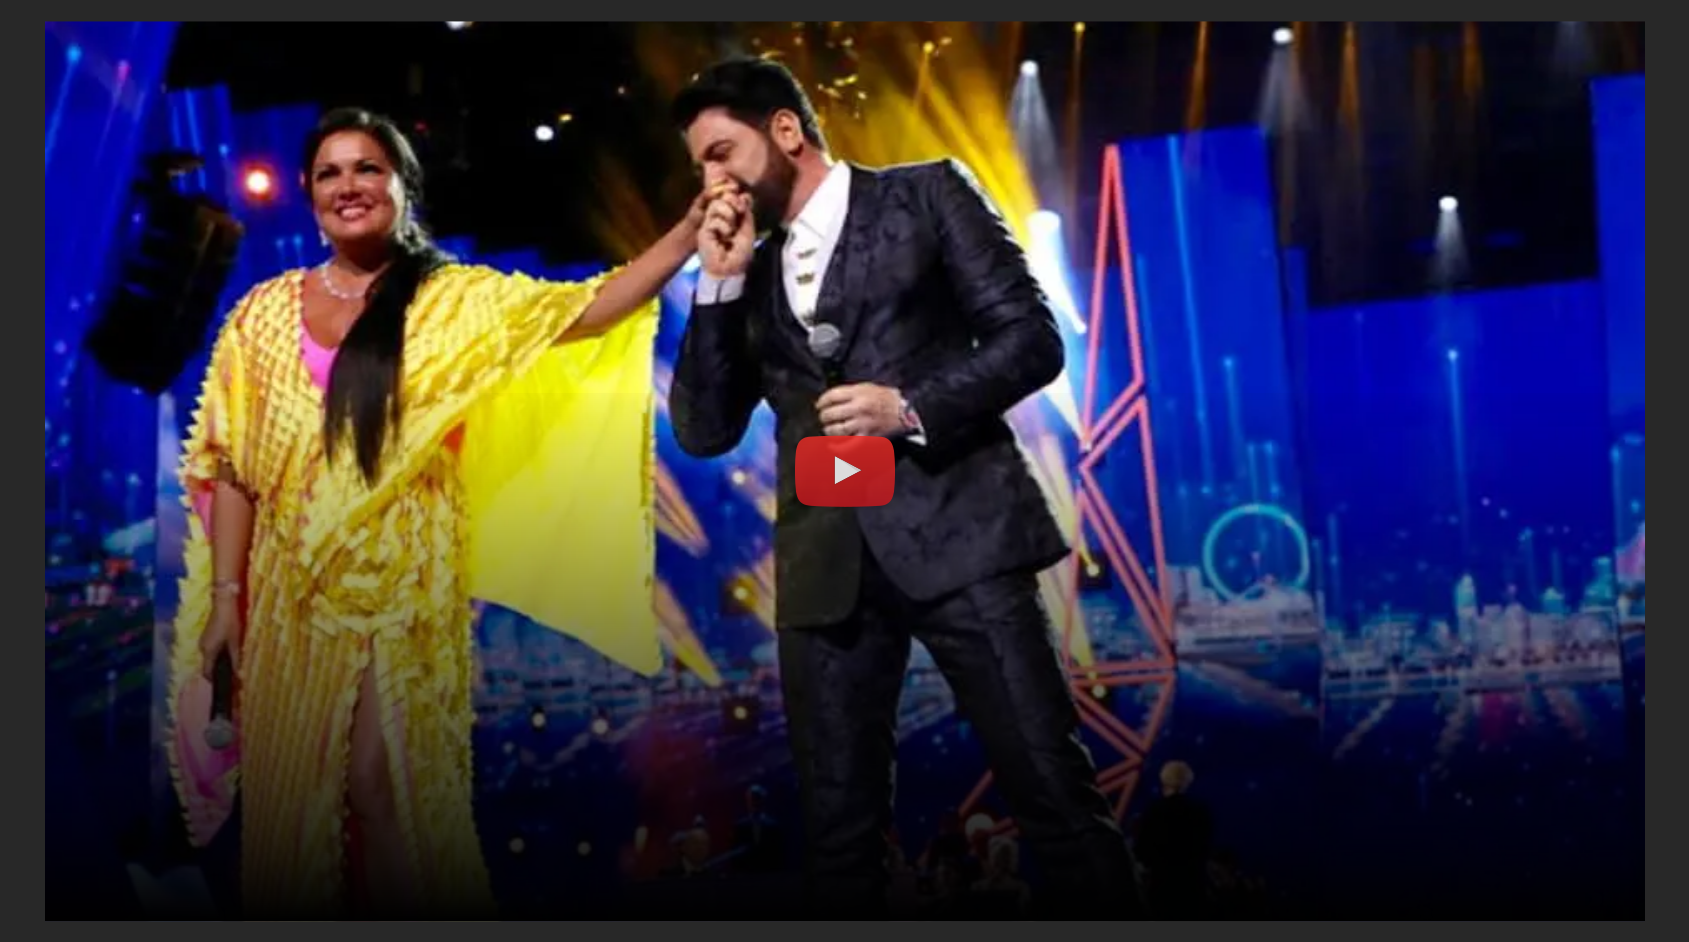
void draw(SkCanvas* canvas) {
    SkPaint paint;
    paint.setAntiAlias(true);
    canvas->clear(0xFF282828);
    canvas->drawImageRect(SkImages::DeferredFromEncodedData(SkData::MakeFromFileName("img1.png")), SkRect::MakeXYWH(45, 21, 1600, 901), SkSamplingOptions());
    {
        const SkColor colors[] = {0xFF000000, 0x00000000};
        const float stops[] = {0, 0.6f};
        const SkPoint ends[] = {{845, 921}, {845, 21}};
        paint.setShader(SkGradientShader::MakeLinear(ends, colors, stops, 2, SkTileMode::kClamp));
        paint.setAlpha(255);
    }
    canvas->drawRect(SkRect::MakeXYWH(45, 393, 1600, 528), paint);
    canvas->drawImageRect(SkImages::DeferredFromEncodedData(SkData::MakeFromFileName("img2.png")), SkRect::MakeXYWH(795, 435, 100, 72), SkSamplingOptions());
}
